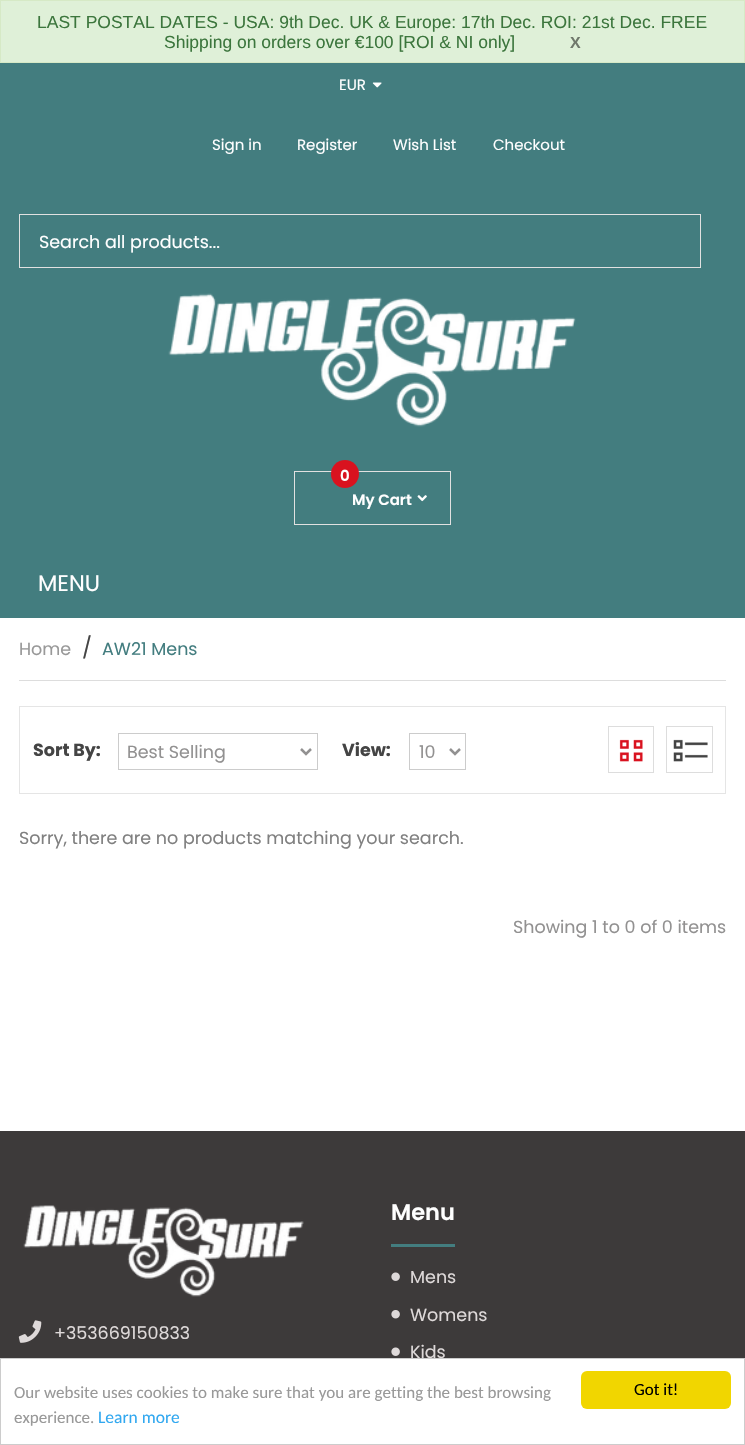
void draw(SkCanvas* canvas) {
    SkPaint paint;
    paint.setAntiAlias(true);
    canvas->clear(0xFFFFFFFF);
    paint.setColor(0xFFDFF0D8);
    canvas->drawRect(SkRect::MakeXYWH(0.5f, 0.5f, 744, 62), paint);
    paint.setStyle(SkPaint::kStroke_Style);
    paint.setStrokeWidth(1);
    paint.setColor(0xFFD6E9C6);
    canvas->drawRect(SkRect::MakeXYWH(0.5f, 0.5f, 744, 62), paint);
    SkFont font1(fontMgr->matchFamilyStyle("Liberation Sans", SkFontStyle::Normal()), 17.5f);
    font1.setSubpixel(true);
    paint.setStyle(SkPaint::kFill_Style);
    paint.setColor(0xFF3C763D);
    canvas->drawString("LAST POSTAL DATES - USA: 9th Dec. UK & Europe: 17th Dec. ROI: 21st Dec. FREE", 37, 28, font1, paint);
    canvas->drawString("Shipping on orders over €100 [ROI & NI only]", 164, 48, font1, paint);
    SkFont font2(fontMgr->matchFamilyStyle("Liberation Sans", SkFontStyle::Bold()), 16);
    font2.setSubpixel(true);
    paint.setColor(0xFF70786C);
    canvas->drawString("X", 570, 48, font2, paint);
    paint.setColor(0xFF437D7F);
    canvas->drawRect(SkRect::MakeXYWH(0, 63, 745, 483), paint);
    SkFont font3(fontMgr->matchFamilyStyle("Poppins", SkFontStyle::Normal()), 15);
    font3.setSubpixel(true);
    paint.setColor(0xFFFFFFFF);
    canvas->drawString("EUR", 339, 90, font3, paint);
    canvas->drawImageRect(SkImages::DeferredFromEncodedData(SkData::MakeFromFileName("img1.png")), SkRect::MakeXYWH(372, 82, 10, 6), SkSamplingOptions());
    canvas->drawString("Sign in", 212, 150, font3, paint);
    canvas->drawString("Register", 297, 150, font3, paint);
    canvas->drawString("Wish List", 393, 150, font3, paint);
    canvas->drawString("Checkout", 493, 150, font3, paint);
    paint.setStyle(SkPaint::kStroke_Style);
    paint.setColor(0xFFE1E1E1);
    canvas->drawRect(SkRect::MakeXYWH(19.5f, 214.5f, 681, 53), paint);
    SkFont font4(fontMgr->matchFamilyStyle("Poppins", SkFontStyle::Normal()), 17.5f);
    font4.setSubpixel(true);
    paint.setStyle(SkPaint::kFill_Style);
    paint.setColor(0xFFFFFFFF);
    canvas->drawString("Search all products...", 39, 248, font4, paint);
    canvas->drawImageRect(SkImages::DeferredFromEncodedData(SkData::MakeFromFileName("img2.png")), SkRect::MakeXYWH(168, 293, 408, 134), SkSamplingOptions());
    paint.setStyle(SkPaint::kStroke_Style);
    paint.setColor(0xFFE1E1E1);
    canvas->drawRect(SkRect::MakeXYWH(294.5f, 471.5f, 156, 53), paint);
    paint.setStyle(SkPaint::kFill_Style);
    paint.setColor(0xFFD9121F);
    canvas->drawCircle(345, 474, 14, paint);
    SkFont font5(fontMgr->matchFamilyStyle("Poppins", SkFontStyle(600, SkFontStyle::kNormal_Width, SkFontStyle::kUpright_Slant)), 15);
    font5.setSubpixel(true);
    paint.setColor(0xFFFFFFFF);
    canvas->drawString("0", 340, 481, font5, paint);
    canvas->drawString("My Cart", 352, 505, font5, paint);
    canvas->drawImageRect(SkImages::DeferredFromEncodedData(SkData::MakeFromFileName("img3.png")), SkRect::MakeXYWH(417, 495, 10, 7), SkSamplingOptions());
    paint.setColor(0xFF437D7F);
    canvas->drawRect(SkRect::MakeXYWH(0, 546, 745, 72), paint);
    SkFont font6(fontMgr->matchFamilyStyle("Poppins", SkFontStyle::Normal()), 22.5f);
    font6.setSubpixel(true);
    paint.setColor(0xFFFFFFFF);
    canvas->drawString("MENU", 38, 591, font6, paint);
    paint.setColor(0xFFDDDDDD);
    canvas->drawRect(SkRect::MakeXYWH(19, 680, 707, 1), paint);
    paint.setColor(0xFF999999);
    canvas->drawString("Home", 19, 655, font4, paint);
    SkFont font7(fontMgr->matchFamilyStyle("Poppins", SkFontStyle::Normal()), 21);
    font7.setSubpixel(true);
    paint.setColor(0xFF444444);
    canvas->drawString("/", 82, 655, font7, paint);
    paint.setColor(0xFF437D7F);
    canvas->drawString("AW21 Mens", 102, 655, font4, paint);
    paint.setStyle(SkPaint::kStroke_Style);
    paint.setColor(0xFFE5E5E5);
    canvas->drawRect(SkRect::MakeXYWH(19.5f, 706.5f, 706, 87), paint);
    SkFont font8(fontMgr->matchFamilyStyle("Poppins", SkFontStyle::Bold()), 17.5f);
    font8.setSubpixel(true);
    paint.setStyle(SkPaint::kFill_Style);
    paint.setColor(0xFF444444);
    canvas->drawString("Sort By:", 33, 756, font8, paint);
    paint.setStyle(SkPaint::kStroke_Style);
    paint.setColor(0xFFCCCCCC);
    canvas->drawRect(SkRect::MakeXYWH(118.5f, 733.5f, 199, 36), paint);
    paint.setStrokeWidth(2.5f);
    paint.setColor(0xFF929191);
    canvas->drawPath(SkPathBuilder().moveTo(301, 749).lineTo(306, 754).lineTo(311, 749).detach(), paint);
    paint.setStyle(SkPaint::kFill_Style);
    canvas->drawString("Best Selling", 127, 758, font4, paint);
    paint.setColor(0xFF444444);
    canvas->drawString("View:", 342, 756, font8, paint);
    paint.setStyle(SkPaint::kStroke_Style);
    paint.setStrokeWidth(1);
    paint.setColor(0xFFCCCCCC);
    canvas->drawRect(SkRect::MakeXYWH(409.5f, 733.5f, 56, 36), paint);
    paint.setStrokeWidth(2.5f);
    paint.setColor(0xFF929191);
    canvas->drawPath(SkPathBuilder().moveTo(450, 749).lineTo(455, 754).lineTo(460, 749).detach(), paint);
    paint.setStyle(SkPaint::kFill_Style);
    canvas->drawString("10", 419, 758, font4, paint);
    paint.setStyle(SkPaint::kStroke_Style);
    paint.setStrokeWidth(1);
    paint.setColor(0xFFDDDDDD);
    canvas->drawRect(SkRect::MakeXYWH(608.5f, 726.5f, 45, 46), paint);
    canvas->drawImageRect(SkImages::DeferredFromEncodedData(SkData::MakeFromFileName("img4.png")), SkRect::MakeXYWH(619, 739, 24, 23), SkSamplingOptions());
    canvas->drawRect(SkRect::MakeXYWH(666.5f, 726.5f, 46, 46), paint);
    canvas->drawImageRect(SkImages::DeferredFromEncodedData(SkData::MakeFromFileName("img5.png")), SkRect::MakeXYWH(673, 739, 35, 23), SkSamplingOptions());
    paint.setStyle(SkPaint::kFill_Style);
    paint.setColor(0xFF808080);
    canvas->drawString("Sorry, there are no products matching your search.", 19, 844, font4, paint);
    paint.setColor(0xFF929191);
    canvas->drawString("Showing 1 to 0 of 0 items", 513, 933, font4, paint);
    paint.setColor(0xFF3D3A3A);
    canvas->drawRect(SkRect::MakeXYWH(0, 1131, 745, 227), paint);
    canvas->drawImageRect(SkImages::DeferredFromEncodedData(SkData::MakeFromFileName("img6.png")), SkRect::MakeXYWH(23, 1205, 281, 92), SkSamplingOptions());
    canvas->drawImageRect(SkImages::DeferredFromEncodedData(SkData::MakeFromFileName("img7.png")), SkRect::MakeXYWH(18, 1320, 24, 23), SkSamplingOptions());
    paint.setColor(0xFFDED9D9);
    canvas->drawString("+353669150833", 54, 1339, font4, paint);
    paint.setColor(0xFF437D7F);
    canvas->drawRect(SkRect::MakeXYWH(391, 1244, 64, 3), paint);
    SkFont font9(fontMgr->matchFamilyStyle("Poppins", SkFontStyle(600, SkFontStyle::kNormal_Width, SkFontStyle::kUpright_Slant)), 22.5f);
    font9.setSubpixel(true);
    paint.setColor(0xFFFFFFFF);
    canvas->drawString("Menu", 391, 1220, font9, paint);
    canvas->drawImageRect(SkImages::DeferredFromEncodedData(SkData::MakeFromFileName("img8.png")), SkRect::MakeXYWH(391, 1272, 9, 9), SkSamplingOptions());
    paint.setColor(0xFFDED9D9);
    canvas->drawString("Mens", 410, 1283, font4, paint);
    canvas->drawImageRect(SkImages::DeferredFromEncodedData(SkData::MakeFromFileName("img9.png")), SkRect::MakeXYWH(391, 1310, 9, 9), SkSamplingOptions());
    canvas->drawString("Womens", 410, 1321, font4, paint);
    canvas->drawImageRect(SkImages::DeferredFromEncodedData(SkData::MakeFromFileName("img8.png")), SkRect::MakeXYWH(391, 1347, 9, 9), SkSamplingOptions());
    canvas->drawString("Kids", 410, 1358, font4, paint);
    paint.setStyle(SkPaint::kStroke_Style);
    paint.setColor(0xFFCCCCCC);
    canvas->drawRect(SkRect::MakeXYWH(0.5f, 1358.5f, 744, 86), paint);
    SkFont font10(fontMgr->matchFamilyStyle("Carlito", SkFontStyle::Normal()), 17);
    font10.setSubpixel(true);
    paint.setStyle(SkPaint::kFill_Style);
    paint.setColor(0xFF999999);
    canvas->drawString("Our website uses cookies to make sure that you are getting the best browsing", 14, 1398, font10, paint);
    canvas->drawString("experience.", 14, 1423, font10, paint);
    SkFont font11(fontMgr->matchFamilyStyle("Carlito", SkFontStyle::Normal()), 17.5f);
    font11.setSubpixel(true);
    paint.setColor(0xFF31A8F0);
    canvas->drawString("Learn more", 98, 1423, font11, paint);
    paint.setColor(0xFFF1D600);
    canvas->drawRoundRect(SkRect::MakeXYWH(581, 1371, 150, 38), 6, 6, paint);
    paint.setColor(0xFF000000);
    canvas->drawString("Got it!", 634, 1395, font10, paint);
}
